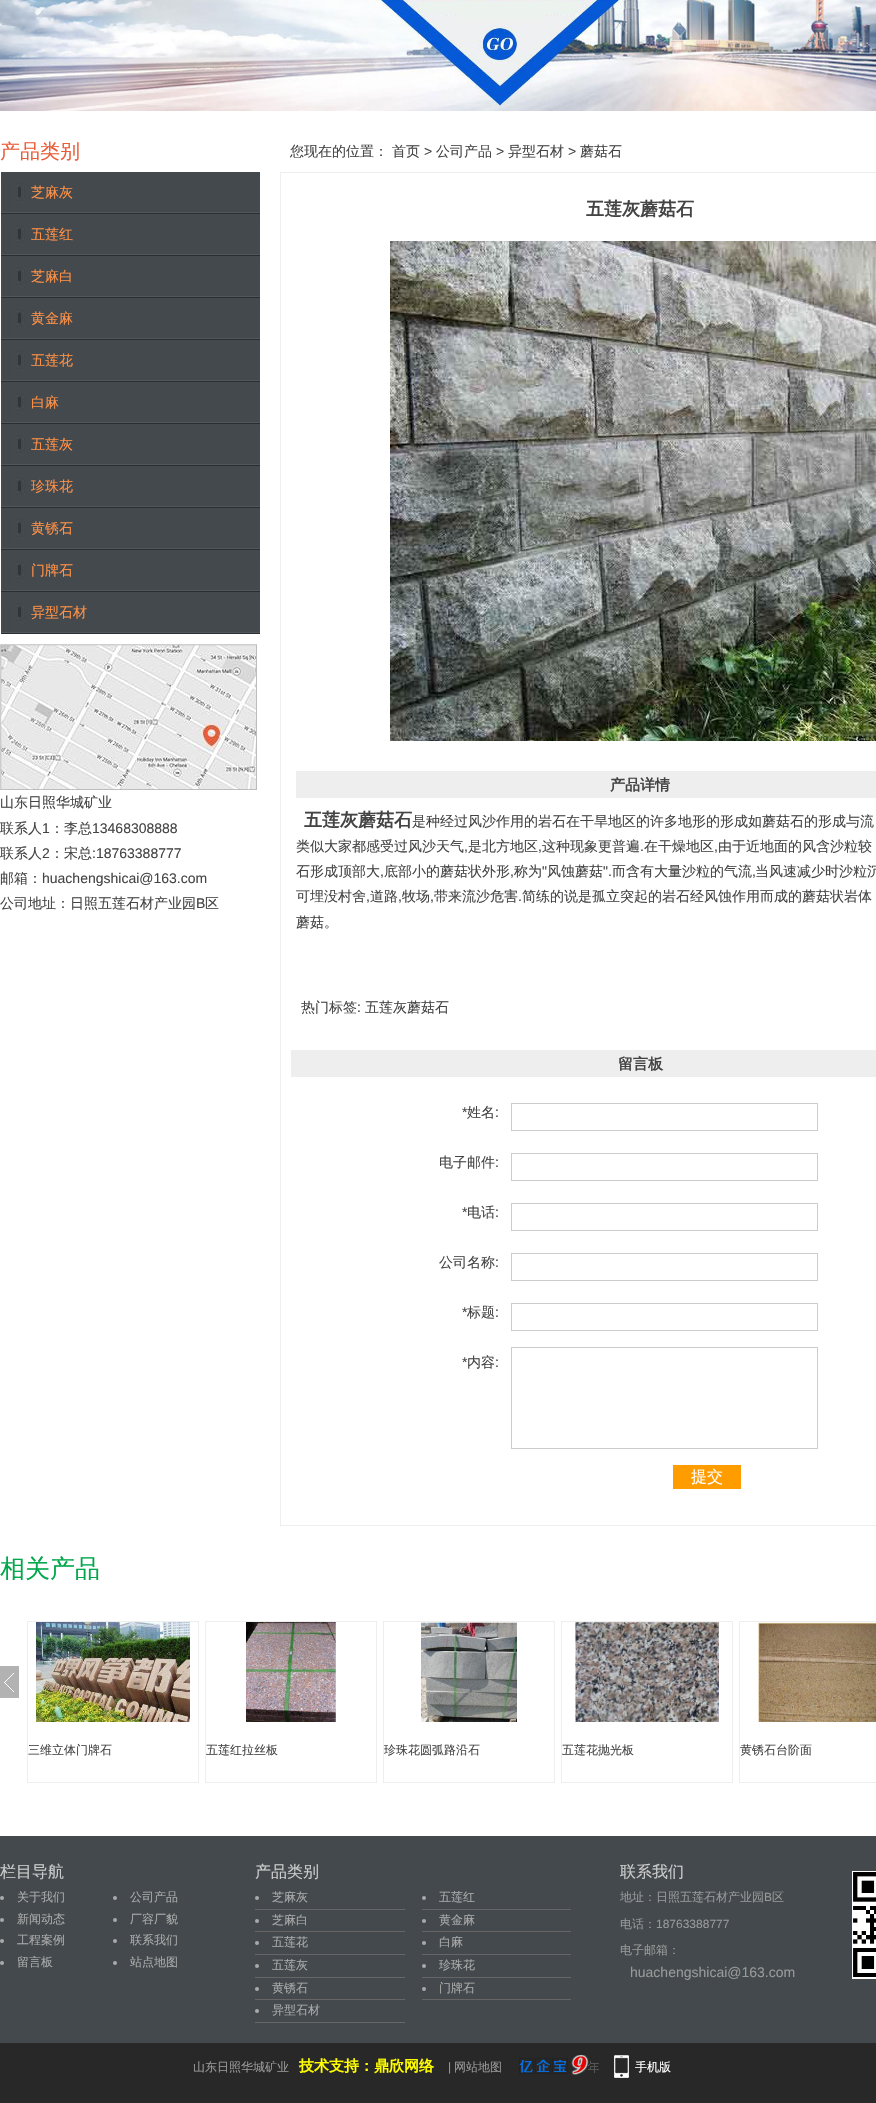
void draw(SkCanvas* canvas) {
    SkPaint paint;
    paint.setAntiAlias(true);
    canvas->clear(0xFFFFFFFF);
    canvas->drawImageRect(SkImages::DeferredFromEncodedData(SkData::MakeFromFileName("img1.png")), SkRect::MakeXYWH(0, 0, 876, 111), SkSamplingOptions());
    SkFont font1(fontMgr->matchFamilyStyle("WenQuanYi Zen Hei", SkFontStyle(500, SkFontStyle::kNormal_Width, SkFontStyle::kUpright_Slant)), 20);
    font1.setSubpixel(true);
    paint.setColor(0xFFEA5C38);
    canvas->drawString("产品类别", 0, 158, font1, paint);
    paint.setColor(0xFF43494C);
    canvas->drawRect(SkRect::MakeXYWH(1, 172, 259, 431), paint);
    canvas->drawImageRect(SkImages::DeferredFromEncodedData(SkData::MakeFromFileName("img2.png")), SkRect::MakeXYWH(1, 183, 259, 31), SkSamplingOptions());
    SkFont font2(fontMgr->matchFamilyStyle("WenQuanYi Zen Hei", SkFontStyle(500, SkFontStyle::kNormal_Width, SkFontStyle::kUpright_Slant)), 14);
    font2.setSubpixel(true);
    paint.setColor(0xFFFF9147);
    canvas->drawString("芝麻灰", 31, 197, font2, paint);
    canvas->drawImageRect(SkImages::DeferredFromEncodedData(SkData::MakeFromFileName("img2.png")), SkRect::MakeXYWH(1, 225, 259, 31), SkSamplingOptions());
    canvas->drawString("五莲红", 31, 239, font2, paint);
    canvas->drawImageRect(SkImages::DeferredFromEncodedData(SkData::MakeFromFileName("img2.png")), SkRect::MakeXYWH(1, 267, 259, 31), SkSamplingOptions());
    canvas->drawString("芝麻白", 31, 281, font2, paint);
    canvas->drawImageRect(SkImages::DeferredFromEncodedData(SkData::MakeFromFileName("img2.png")), SkRect::MakeXYWH(1, 309, 259, 31), SkSamplingOptions());
    canvas->drawString("黄金麻", 31, 323, font2, paint);
    canvas->drawImageRect(SkImages::DeferredFromEncodedData(SkData::MakeFromFileName("img2.png")), SkRect::MakeXYWH(1, 351, 259, 31), SkSamplingOptions());
    canvas->drawString("五莲花", 31, 365, font2, paint);
    canvas->drawImageRect(SkImages::DeferredFromEncodedData(SkData::MakeFromFileName("img2.png")), SkRect::MakeXYWH(1, 393, 259, 31), SkSamplingOptions());
    canvas->drawString("白麻", 31, 407, font2, paint);
    canvas->drawImageRect(SkImages::DeferredFromEncodedData(SkData::MakeFromFileName("img2.png")), SkRect::MakeXYWH(1, 435, 259, 31), SkSamplingOptions());
    canvas->drawString("五莲灰", 31, 449, font2, paint);
    canvas->drawImageRect(SkImages::DeferredFromEncodedData(SkData::MakeFromFileName("img2.png")), SkRect::MakeXYWH(1, 477, 259, 31), SkSamplingOptions());
    canvas->drawString("珍珠花", 31, 491, font2, paint);
    canvas->drawImageRect(SkImages::DeferredFromEncodedData(SkData::MakeFromFileName("img2.png")), SkRect::MakeXYWH(1, 519, 259, 31), SkSamplingOptions());
    canvas->drawString("黄锈石", 31, 533, font2, paint);
    canvas->drawImageRect(SkImages::DeferredFromEncodedData(SkData::MakeFromFileName("img2.png")), SkRect::MakeXYWH(1, 561, 259, 31), SkSamplingOptions());
    canvas->drawString("门牌石", 31, 575, font2, paint);
    canvas->drawImageRect(SkImages::DeferredFromEncodedData(SkData::MakeFromFileName("img2.png")), SkRect::MakeXYWH(1, 603, 259, 31), SkSamplingOptions());
    canvas->drawString("异型石材", 31, 617, font2, paint);
    canvas->drawImageRect(SkImages::DeferredFromEncodedData(SkData::MakeFromFileName("img3.png")), SkRect::MakeXYWH(0, 644, 257, 146), SkSamplingOptions());
    paint.setColor(0xFF444444);
    canvas->drawString("山东日照华城矿业", 0, 807, font2, paint);
    canvas->drawString("联系人", 0, 833, font2, paint);
    SkFont font3(fontMgr->matchFamilyStyle("Liberation Sans", SkFontStyle::Normal()), 14);
    font3.setSubpixel(true);
    canvas->drawString("1", 42, 833, font3, paint);
    canvas->drawString("：李总", 50, 833, font2, paint);
    canvas->drawString("13468308888", 92, 833, font3, paint);
    canvas->drawString("联系人", 0, 858, font2, paint);
    canvas->drawString("2", 42, 858, font3, paint);
    canvas->drawString("：宋总", 50, 858, font2, paint);
    canvas->drawString(":18763388777", 92, 858, font3, paint);
    canvas->drawString("邮箱：", 0, 883, font2, paint);
    canvas->drawString("huachengshicai@163.com", 42, 883, font3, paint);
    canvas->drawString("公司地址：日照五莲石材产业园", 0, 908, font2, paint);
    canvas->drawString("B", 196, 908, font3, paint);
    canvas->drawString("区", 205, 908, font2, paint);
    canvas->drawString("您现在的位置：", 290, 156, font2, paint);
    canvas->drawString("首页", 392, 156, font2, paint);
    canvas->drawString(">", 424, 156, font3, paint);
    canvas->drawString("公司产品", 436, 156, font2, paint);
    canvas->drawString(">", 496, 156, font3, paint);
    canvas->drawString("异型石材", 508, 156, font2, paint);
    canvas->drawString(">", 568, 156, font3, paint);
    canvas->drawString("蘑菇石", 580, 156, font2, paint);
    paint.setStyle(SkPaint::kStroke_Style);
    paint.setStrokeWidth(1);
    paint.setColor(0xFFEEEEEE);
    canvas->drawRect(SkRect::MakeXYWH(280.5f, 172.5f, 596, 1353), paint);
    SkFont font4(fontMgr->matchFamilyStyle("WenQuanYi Zen Hei", SkFontStyle::Bold()), 18);
    font4.setSubpixel(true);
    paint.setStyle(SkPaint::kFill_Style);
    paint.setColor(0xFF444444);
    canvas->drawString("五莲灰蘑菇石", 586, 215, font4, paint);
    canvas->drawImageRect(SkImages::DeferredFromEncodedData(SkData::MakeFromFileName("img4.png")), SkRect::MakeXYWH(390, 241, 486, 500), SkSamplingOptions());
    paint.setColor(0xFFEEEEEE);
    canvas->drawRect(SkRect::MakeXYWH(296, 771, 580, 27), paint);
    SkFont font5(fontMgr->matchFamilyStyle("WenQuanYi Zen Hei", SkFontStyle::Bold()), 15);
    font5.setSubpixel(true);
    paint.setColor(0xFF444444);
    canvas->drawString("产品详情", 610, 790, font5, paint);
    canvas->drawString("五莲灰蘑菇石", 304, 826, font4, paint);
    canvas->drawString("是种经过风沙作用的岩石在干旱地区的许多地形的形成如蘑菇石的形成与流", 412, 826, font2, paint);
    canvas->drawString("类似大家都感受过风沙天气", 296, 851, font2, paint);
    canvas->drawString(",", 464, 851, font3, paint);
    canvas->drawString("是北方地区", 468, 851, font2, paint);
    canvas->drawString(",", 538, 851, font3, paint);
    canvas->drawString("这种现象更普遍", 542, 851, font2, paint);
    canvas->drawString(".", 640, 851, font3, paint);
    canvas->drawString("在干燥地区", 644, 851, font2, paint);
    canvas->drawString(",", 714, 851, font3, paint);
    canvas->drawString("由于近地面的风含沙粒较", 718, 851, font2, paint);
    canvas->drawString("石形成顶部大", 296, 876, font2, paint);
    canvas->drawString(",", 380, 876, font3, paint);
    canvas->drawString("底部小的蘑菇状外形", 384, 876, font2, paint);
    canvas->drawString(",", 510, 876, font3, paint);
    canvas->drawString("称为", 514, 876, font2, paint);
    canvas->drawString("\"", 542, 876, font3, paint);
    canvas->drawString("风蚀蘑菇", 547, 876, font2, paint);
    canvas->drawString("\".", 603, 876, font3, paint);
    canvas->drawString("而含有大量沙粒的气流", 612, 876, font2, paint);
    canvas->drawString(",", 752, 876, font3, paint);
    canvas->drawString("当风速减少时沙粒沉", 755, 876, font2, paint);
    canvas->drawString("可埋没村舍", 296, 901, font2, paint);
    canvas->drawString(",", 366, 901, font3, paint);
    canvas->drawString("道路", 370, 901, font2, paint);
    canvas->drawString(",", 398, 901, font3, paint);
    canvas->drawString("牧场", 402, 901, font2, paint);
    canvas->drawString(",", 430, 901, font3, paint);
    canvas->drawString("带来流沙危害", 434, 901, font2, paint);
    canvas->drawString(".", 518, 901, font3, paint);
    canvas->drawString("简练的说是孤立突起的岩石经风蚀作用而成的蘑菇状岩体", 522, 901, font2, paint);
    canvas->drawString("蘑菇。", 296, 927, font2, paint);
    canvas->drawString("热门标签", 301, 1012, font2, paint);
    canvas->drawString(":", 357, 1012, font3, paint);
    canvas->drawString("五莲灰蘑菇石", 365, 1012, font2, paint);
    paint.setColor(0xFFEEEEEE);
    canvas->drawRect(SkRect::MakeXYWH(291, 1050, 585, 27), paint);
    paint.setColor(0xFF444444);
    canvas->drawString("留言板", 618, 1069, font5, paint);
    canvas->drawString("*", 462, 1117, font3, paint);
    canvas->drawString("姓名", 467, 1117, font2, paint);
    canvas->drawString(":", 495, 1117, font3, paint);
    paint.setStyle(SkPaint::kStroke_Style);
    paint.setColor(0xFFCCCCCC);
    canvas->drawRect(SkRect::MakeXYWH(511.5f, 1103.5f, 306, 27), paint);
    paint.setStyle(SkPaint::kFill_Style);
    paint.setColor(0xFF444444);
    canvas->drawString("电子邮件", 439, 1167, font2, paint);
    canvas->drawString(":", 495, 1167, font3, paint);
    paint.setStyle(SkPaint::kStroke_Style);
    paint.setColor(0xFFCCCCCC);
    canvas->drawRect(SkRect::MakeXYWH(511.5f, 1153.5f, 306, 27), paint);
    paint.setStyle(SkPaint::kFill_Style);
    paint.setColor(0xFF444444);
    canvas->drawString("*", 462, 1217, font3, paint);
    canvas->drawString("电话", 467, 1217, font2, paint);
    canvas->drawString(":", 495, 1217, font3, paint);
    paint.setStyle(SkPaint::kStroke_Style);
    paint.setColor(0xFFCCCCCC);
    canvas->drawRect(SkRect::MakeXYWH(511.5f, 1203.5f, 306, 27), paint);
    paint.setStyle(SkPaint::kFill_Style);
    paint.setColor(0xFF444444);
    canvas->drawString("公司名称", 439, 1267, font2, paint);
    canvas->drawString(":", 495, 1267, font3, paint);
    paint.setStyle(SkPaint::kStroke_Style);
    paint.setColor(0xFFCCCCCC);
    canvas->drawRect(SkRect::MakeXYWH(511.5f, 1253.5f, 306, 27), paint);
    paint.setStyle(SkPaint::kFill_Style);
    paint.setColor(0xFF444444);
    canvas->drawString("*", 462, 1317, font3, paint);
    canvas->drawString("标题", 467, 1317, font2, paint);
    canvas->drawString(":", 495, 1317, font3, paint);
    paint.setStyle(SkPaint::kStroke_Style);
    paint.setColor(0xFFCCCCCC);
    canvas->drawRect(SkRect::MakeXYWH(511.5f, 1303.5f, 306, 27), paint);
    paint.setStyle(SkPaint::kFill_Style);
    paint.setColor(0xFF444444);
    canvas->drawString("*", 462, 1367, font3, paint);
    canvas->drawString("内容", 467, 1367, font2, paint);
    canvas->drawString(":", 495, 1367, font3, paint);
    paint.setStyle(SkPaint::kStroke_Style);
    paint.setColor(0xFFCCCCCC);
    canvas->drawRect(SkRect::MakeXYWH(511.5f, 1347.5f, 306, 101), paint);
    paint.setStyle(SkPaint::kFill_Style);
    paint.setColor(0xFFFF9C00);
    canvas->drawRect(SkRect::MakeXYWH(673, 1465, 68, 24), paint);
    SkFont font6(fontMgr->matchFamilyStyle("WenQuanYi Zen Hei", SkFontStyle(500, SkFontStyle::kNormal_Width, SkFontStyle::kUpright_Slant)), 16);
    font6.setSubpixel(true);
    paint.setColor(0xFFFFFFFF);
    canvas->drawString("提交", 691, 1482, font6, paint);
    SkFont font7(fontMgr->matchFamilyStyle("WenQuanYi Zen Hei", SkFontStyle(500, SkFontStyle::kNormal_Width, SkFontStyle::kUpright_Slant)), 25);
    font7.setSubpixel(true);
    paint.setColor(0xFF00A74B);
    canvas->drawString("相关产品", 0, 1577, font7, paint);
    canvas->drawImageRect(SkImages::DeferredFromEncodedData(SkData::MakeFromFileName("img5.png")), SkRect::MakeXYWH(0, 1666, 19, 32), SkSamplingOptions());
    paint.setStyle(SkPaint::kStroke_Style);
    paint.setColor(0xFFEEEEEE);
    canvas->drawRect(SkRect::MakeXYWH(27.5f, 1621.5f, 171, 161), paint);
    canvas->drawImageRect(SkImages::DeferredFromEncodedData(SkData::MakeFromFileName("img6.png")), SkRect::MakeXYWH(36, 1622, 154, 100), SkSamplingOptions());
    SkFont font8(fontMgr->matchFamilyStyle("WenQuanYi Zen Hei", SkFontStyle(500, SkFontStyle::kNormal_Width, SkFontStyle::kUpright_Slant)), 12);
    font8.setSubpixel(true);
    paint.setStyle(SkPaint::kFill_Style);
    paint.setColor(0xFF444444);
    canvas->drawString("三维立体门牌石", 28, 1754, font8, paint);
    paint.setStyle(SkPaint::kStroke_Style);
    paint.setColor(0xFFEEEEEE);
    canvas->drawRect(SkRect::MakeXYWH(205.5f, 1621.5f, 171, 161), paint);
    canvas->drawImageRect(SkImages::DeferredFromEncodedData(SkData::MakeFromFileName("img7.png")), SkRect::MakeXYWH(246, 1622, 90, 100), SkSamplingOptions());
    paint.setStyle(SkPaint::kFill_Style);
    paint.setColor(0xFF444444);
    canvas->drawString("五莲红拉丝板", 206, 1754, font8, paint);
    paint.setStyle(SkPaint::kStroke_Style);
    paint.setColor(0xFFEEEEEE);
    canvas->drawRect(SkRect::MakeXYWH(383.5f, 1621.5f, 171, 161), paint);
    canvas->drawImageRect(SkImages::DeferredFromEncodedData(SkData::MakeFromFileName("img8.png")), SkRect::MakeXYWH(421, 1622, 96, 100), SkSamplingOptions());
    paint.setStyle(SkPaint::kFill_Style);
    paint.setColor(0xFF444444);
    canvas->drawString("珍珠花圆弧路沿石", 384, 1754, font8, paint);
    paint.setStyle(SkPaint::kStroke_Style);
    paint.setColor(0xFFEEEEEE);
    canvas->drawRect(SkRect::MakeXYWH(561.5f, 1621.5f, 171, 161), paint);
    canvas->drawImageRect(SkImages::DeferredFromEncodedData(SkData::MakeFromFileName("img9.png")), SkRect::MakeXYWH(575, 1622, 144, 100), SkSamplingOptions());
    paint.setStyle(SkPaint::kFill_Style);
    paint.setColor(0xFF444444);
    canvas->drawString("五莲花抛光板", 562, 1754, font8, paint);
    paint.setStyle(SkPaint::kStroke_Style);
    paint.setColor(0xFFEEEEEE);
    canvas->drawRect(SkRect::MakeXYWH(739.5f, 1621.5f, 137, 161), paint);
    canvas->drawImageRect(SkImages::DeferredFromEncodedData(SkData::MakeFromFileName("img10.png")), SkRect::MakeXYWH(758, 1622, 118, 100), SkSamplingOptions());
    paint.setStyle(SkPaint::kFill_Style);
    paint.setColor(0xFF444444);
    canvas->drawString("黄锈石台阶面", 740, 1754, font8, paint);
    paint.setColor(0xFF43494C);
    canvas->drawRect(SkRect::MakeXYWH(0, 1836, 876, 207), paint);
    paint.setColor(0xFFCCCCCC);
    canvas->drawString("栏目导航", 0, 1877, font6, paint);
    paint.setColor(0xFFAAAAAA);
    canvas->drawCircle(2, 1898, 2, paint);
    canvas->drawString("关于我们", 17, 1901, font8, paint);
    canvas->drawCircle(115, 1898, 2, paint);
    canvas->drawString("公司产品", 130, 1901, font8, paint);
    canvas->drawCircle(2, 1920, 2, paint);
    canvas->drawString("新闻动态", 17, 1923, font8, paint);
    canvas->drawCircle(115, 1920, 2, paint);
    canvas->drawString("厂容厂貌", 130, 1923, font8, paint);
    canvas->drawCircle(2, 1941, 2, paint);
    canvas->drawString("工程案例", 17, 1944, font8, paint);
    canvas->drawCircle(115, 1941, 2, paint);
    canvas->drawString("联系我们", 130, 1944, font8, paint);
    canvas->drawCircle(2, 1963, 2, paint);
    canvas->drawString("留言板", 17, 1966, font8, paint);
    canvas->drawCircle(115, 1963, 2, paint);
    canvas->drawString("站点地图", 130, 1966, font8, paint);
    paint.setColor(0xFFCCCCCC);
    canvas->drawString("产品类别", 255, 1877, font6, paint);
    paint.setColor(0xFF666666);
    canvas->drawRect(SkRect::MakeXYWH(255, 1909, 150, 1), paint);
    paint.setColor(0xFFAAAAAA);
    canvas->drawCircle(257, 1898, 2, paint);
    canvas->drawString("芝麻灰", 272, 1901, font8, paint);
    paint.setColor(0xFF666666);
    canvas->drawRect(SkRect::MakeXYWH(422, 1909, 149, 1), paint);
    paint.setColor(0xFFAAAAAA);
    canvas->drawCircle(424, 1898, 2, paint);
    canvas->drawString("五莲红", 439, 1901, font8, paint);
    paint.setColor(0xFF666666);
    canvas->drawRect(SkRect::MakeXYWH(255, 1931, 150, 1), paint);
    paint.setColor(0xFFAAAAAA);
    canvas->drawCircle(257, 1921, 2, paint);
    canvas->drawString("芝麻白", 272, 1924, font8, paint);
    paint.setColor(0xFF666666);
    canvas->drawRect(SkRect::MakeXYWH(422, 1931, 149, 1), paint);
    paint.setColor(0xFFAAAAAA);
    canvas->drawCircle(424, 1921, 2, paint);
    canvas->drawString("黄金麻", 439, 1924, font8, paint);
    paint.setColor(0xFF666666);
    canvas->drawRect(SkRect::MakeXYWH(255, 1954, 150, 1), paint);
    paint.setColor(0xFFAAAAAA);
    canvas->drawCircle(257, 1943, 2, paint);
    canvas->drawString("五莲花", 272, 1946, font8, paint);
    paint.setColor(0xFF666666);
    canvas->drawRect(SkRect::MakeXYWH(422, 1954, 149, 1), paint);
    paint.setColor(0xFFAAAAAA);
    canvas->drawCircle(424, 1943, 2, paint);
    canvas->drawString("白麻", 439, 1946, font8, paint);
    paint.setColor(0xFF666666);
    canvas->drawRect(SkRect::MakeXYWH(255, 1977, 150, 1), paint);
    paint.setColor(0xFFAAAAAA);
    canvas->drawCircle(257, 1966, 2, paint);
    canvas->drawString("五莲灰", 272, 1969, font8, paint);
    paint.setColor(0xFF666666);
    canvas->drawRect(SkRect::MakeXYWH(422, 1977, 149, 1), paint);
    paint.setColor(0xFFAAAAAA);
    canvas->drawCircle(424, 1966, 2, paint);
    canvas->drawString("珍珠花", 439, 1969, font8, paint);
    paint.setColor(0xFF666666);
    canvas->drawRect(SkRect::MakeXYWH(255, 1999, 150, 1), paint);
    paint.setColor(0xFFAAAAAA);
    canvas->drawCircle(257, 1989, 2, paint);
    canvas->drawString("黄锈石", 272, 1992, font8, paint);
    paint.setColor(0xFF666666);
    canvas->drawRect(SkRect::MakeXYWH(422, 1999, 149, 1), paint);
    paint.setColor(0xFFAAAAAA);
    canvas->drawCircle(424, 1989, 2, paint);
    canvas->drawString("门牌石", 439, 1992, font8, paint);
    paint.setColor(0xFF666666);
    canvas->drawRect(SkRect::MakeXYWH(255, 2022, 150, 1), paint);
    paint.setColor(0xFFAAAAAA);
    canvas->drawCircle(257, 2011, 2, paint);
    canvas->drawString("异型石材", 272, 2014, font8, paint);
    paint.setColor(0xFFCCCCCC);
    canvas->drawString("联系我们", 620, 1877, font6, paint);
    paint.setColor(0xFF999999);
    canvas->drawString("地址：日照五莲石材产业园", 620, 1901, font8, paint);
    SkFont font9(fontMgr->matchFamilyStyle("Liberation Sans", SkFontStyle::Normal()), 12);
    font9.setSubpixel(true);
    canvas->drawString("B", 764, 1901, font9, paint);
    canvas->drawString("区", 772, 1901, font8, paint);
    canvas->drawString("电话：", 620, 1928, font8, paint);
    canvas->drawString("18763388777", 656, 1928, font9, paint);
    canvas->drawString("电子邮箱：", 620, 1954, font8, paint);
    canvas->drawString("huachengshicai@163.com", 630, 1977, font3, paint);
    canvas->drawImageRect(SkImages::DeferredFromEncodedData(SkData::MakeFromFileName("img11.png")), SkRect::MakeXYWH(852, 1871, 24, 108), SkSamplingOptions());
    paint.setColor(0xFF282828);
    canvas->drawRect(SkRect::MakeXYWH(0, 2043, 876, 60), paint);
    paint.setColor(0xFF999999);
    canvas->drawString("山东日照华城矿业", 193, 2071, font8, paint);
    paint.setColor(0xFFFFFF00);
    canvas->drawString("技术支持：鼎欣网络", 299, 2071, font5, paint);
    paint.setColor(0xFF999999);
    canvas->drawString("|", 448, 2071, font9, paint);
    canvas->drawString("网站地图", 454, 2071, font8, paint);
    canvas->drawImageRect(SkImages::DeferredFromEncodedData(SkData::MakeFromFileName("img12.png")), SkRect::MakeXYWH(519, 2055, 80, 20), SkSamplingOptions());
    canvas->drawImageRect(SkImages::DeferredFromEncodedData(SkData::MakeFromFileName("img13.png")), SkRect::MakeXYWH(614, 2055, 15, 23), SkSamplingOptions());
    paint.setColor(0xFFFFFFFF);
    canvas->drawString("手机版", 635, 2071, font8, paint);
}
